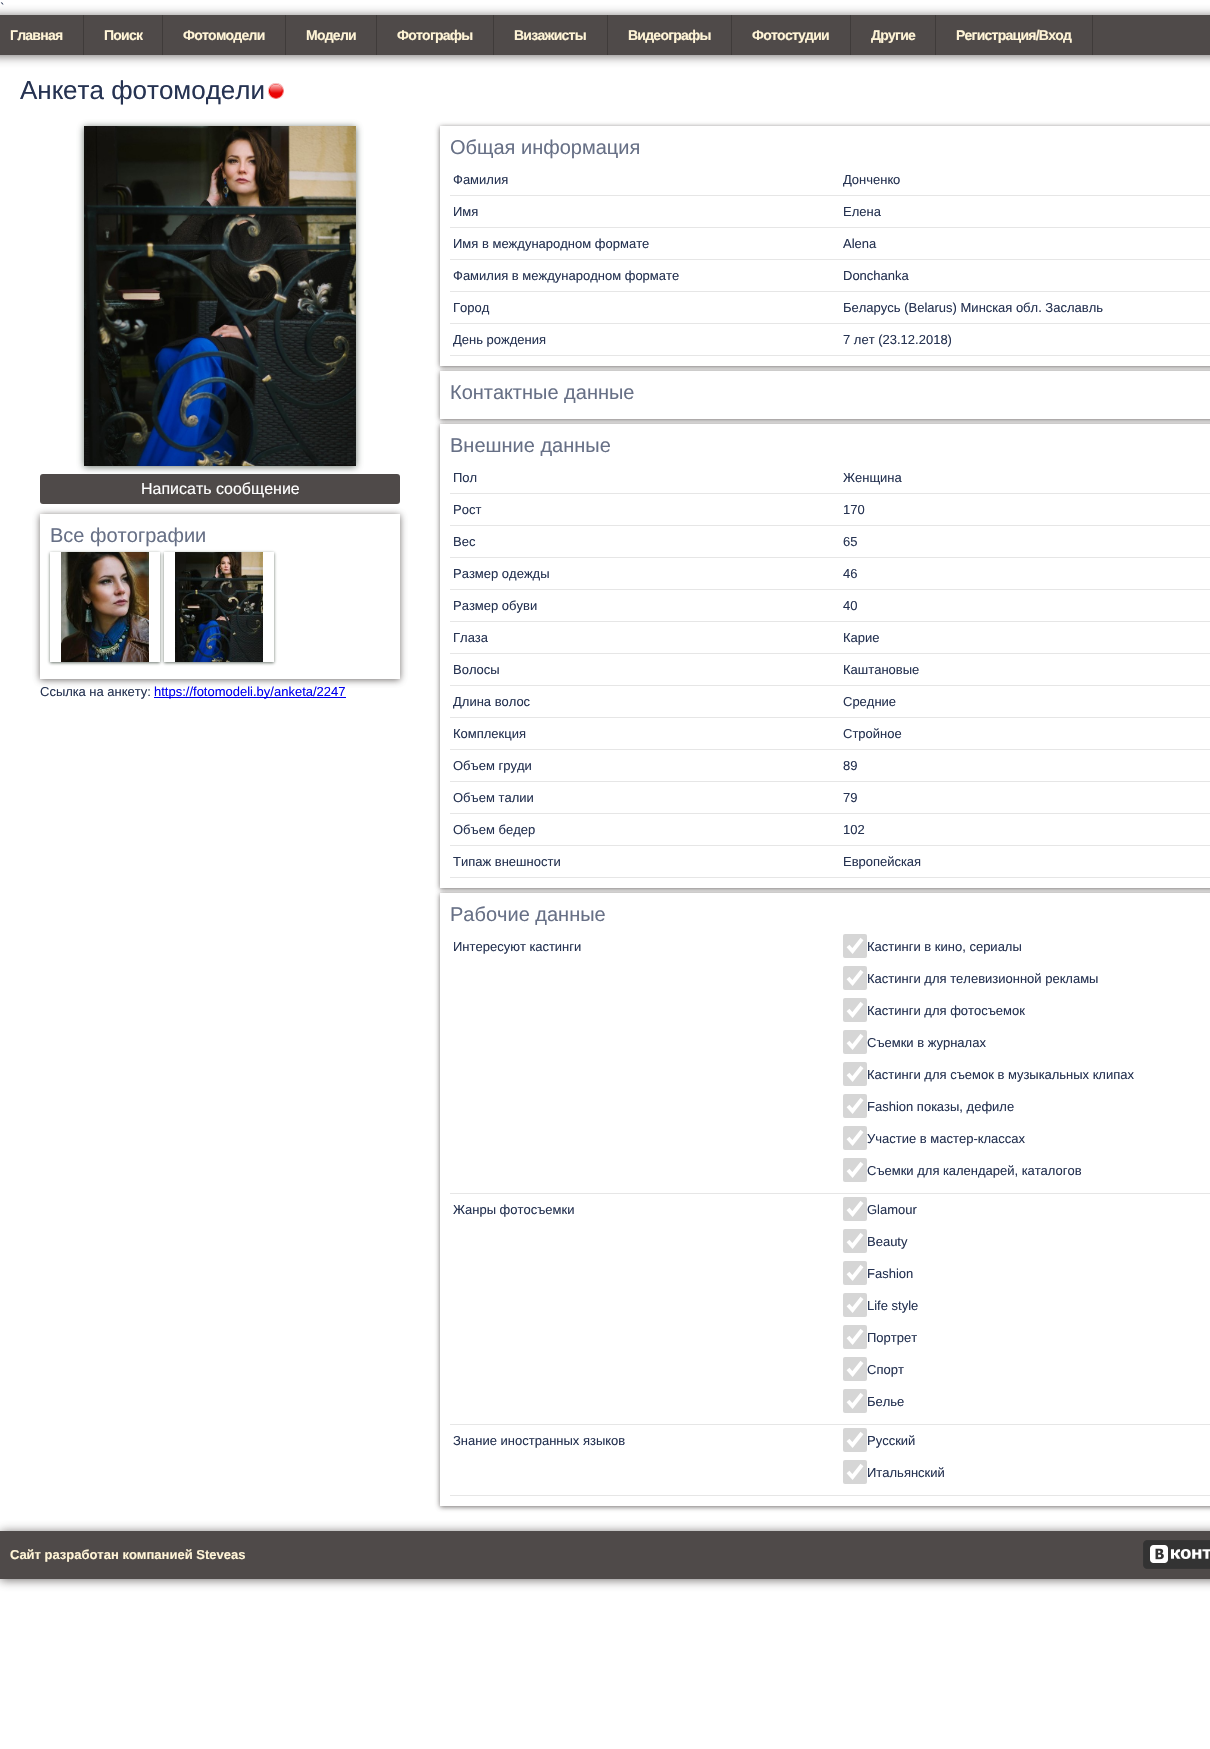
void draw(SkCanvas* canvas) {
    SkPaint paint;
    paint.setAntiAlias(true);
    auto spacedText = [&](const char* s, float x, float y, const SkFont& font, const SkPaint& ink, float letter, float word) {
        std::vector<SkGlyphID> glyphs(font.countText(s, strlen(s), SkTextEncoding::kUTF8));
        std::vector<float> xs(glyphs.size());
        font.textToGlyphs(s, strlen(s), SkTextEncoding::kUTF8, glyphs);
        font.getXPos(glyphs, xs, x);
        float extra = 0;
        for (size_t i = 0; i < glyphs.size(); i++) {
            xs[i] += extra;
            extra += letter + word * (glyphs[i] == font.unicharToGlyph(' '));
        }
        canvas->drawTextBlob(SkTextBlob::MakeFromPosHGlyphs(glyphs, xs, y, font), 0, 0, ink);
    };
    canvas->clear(0xFFFFFFFF);
    SkFont font1(fontMgr->matchFamilyStyle("Liberation Sans", SkFontStyle::Normal()), 13);
    font1.setSubpixel(true);
    paint.setColor(0xFF263352);
    canvas->drawString("`", 0, 12, font1, paint);
    paint.setColor(0xCC4F4A49);
    paint.setMaskFilter(SkMaskFilter::MakeBlur(kNormal_SkBlurStyle, 5));
    canvas->drawRect(SkRect::MakeXYWH(-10, 16, 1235, 40), paint);
    paint.setMaskFilter(nullptr);
    paint.setColor(0xFF4F4A49);
    canvas->drawRect(SkRect::MakeXYWH(0, 15, 1210, 40), paint);
    paint.setColor(0xFF3F3B3A);
    canvas->drawRect(SkRect::MakeXYWH(83, 15, 1, 40), paint);
    SkFont font2(fontMgr->matchFamilyStyle("Liberation Sans", SkFontStyle::Bold()), 14);
    font2.setSubpixel(true);
    paint.setColor(0xFFFFF4D6);
    spacedText("Главная", 10, 40, font2, paint, -0.75f, 0);
    paint.setColor(0xFF3F3B3A);
    canvas->drawRect(SkRect::MakeXYWH(162, 15, 1, 40), paint);
    paint.setColor(0xFFFFF4D6);
    spacedText("Поиск", 104, 40, font2, paint, -0.75f, 0);
    paint.setColor(0xFF3F3B3A);
    canvas->drawRect(SkRect::MakeXYWH(285, 15, 1, 40), paint);
    paint.setColor(0xFFFFF4D6);
    spacedText("Фотомодели", 183, 40, font2, paint, -0.75f, 0);
    paint.setColor(0xFF3F3B3A);
    canvas->drawRect(SkRect::MakeXYWH(376, 15, 1, 40), paint);
    paint.setColor(0xFFFFF4D6);
    spacedText("Модели", 306, 40, font2, paint, -0.75f, 0);
    paint.setColor(0xFF3F3B3A);
    canvas->drawRect(SkRect::MakeXYWH(493, 15, 1, 40), paint);
    paint.setColor(0xFFFFF4D6);
    spacedText("Фотографы", 397, 40, font2, paint, -0.75f, 0);
    paint.setColor(0xFF3F3B3A);
    canvas->drawRect(SkRect::MakeXYWH(607, 15, 1, 40), paint);
    paint.setColor(0xFFFFF4D6);
    spacedText("Визажисты", 514, 40, font2, paint, -0.75f, 0);
    paint.setColor(0xFF3F3B3A);
    canvas->drawRect(SkRect::MakeXYWH(731, 15, 1, 40), paint);
    paint.setColor(0xFFFFF4D6);
    spacedText("Видеографы", 628, 40, font2, paint, -0.75f, 0);
    paint.setColor(0xFF3F3B3A);
    canvas->drawRect(SkRect::MakeXYWH(850, 15, 1, 40), paint);
    paint.setColor(0xFFFFF4D6);
    spacedText("Фотостудии", 752, 40, font2, paint, -0.75f, 0);
    paint.setColor(0xFF3F3B3A);
    canvas->drawRect(SkRect::MakeXYWH(935, 15, 1, 40), paint);
    paint.setColor(0xFFFFF4D6);
    spacedText("Другие", 871, 40, font2, paint, -0.75f, 0);
    paint.setColor(0xFF3F3B3A);
    canvas->drawRect(SkRect::MakeXYWH(1092, 15, 1, 40), paint);
    paint.setColor(0xFFFFF4D6);
    spacedText("Регистрация/Вход", 956, 40, font2, paint, -0.75f, 0);
    SkFont font3(fontMgr->matchFamilyStyle("Liberation Sans", SkFontStyle::Normal()), 26);
    font3.setSubpixel(true);
    paint.setColor(0xFF263352);
    canvas->drawString("Анкета фотомодели", 20, 99, font3, paint);
    canvas->drawImageRect(SkImages::DeferredFromEncodedData(SkData::MakeFromFileName("img1.png")), SkRect::MakeXYWH(268, 83, 16, 16), SkSamplingOptions());
    paint.setColor(0xCC465249);
    paint.setMaskFilter(SkMaskFilter::MakeBlur(kNormal_SkBlurStyle, 3.5f));
    canvas->drawRect(SkRect::MakeXYWH(84, 127, 272, 340), paint);
    paint.setMaskFilter(nullptr);
    canvas->drawImageRect(SkImages::DeferredFromEncodedData(SkData::MakeFromFileName("img2.png")), SkRect::MakeXYWH(84, 126, 272, 340), SkSamplingOptions());
    canvas->save();
    canvas->clipPath(SkPathBuilder(SkPathFillType::kEvenOdd).moveTo(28, 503).lineTo(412, 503).lineTo(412, 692).lineTo(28, 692).close().moveTo(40, 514).lineTo(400, 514).lineTo(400, 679).lineTo(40, 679).close().detach(), true);
    paint.setColor(0xCC4F4A49);
    paint.setMaskFilter(SkMaskFilter::MakeBlur(kNormal_SkBlurStyle, 3.5f));
    canvas->drawRect(SkRect::MakeXYWH(40, 515, 360, 165), paint);
    paint.setMaskFilter(nullptr);
    canvas->restore();
    paint.setColor(0xFF4F4A49);
    canvas->drawRoundRect(SkRect::MakeXYWH(40, 474, 360, 30), 3, 3, paint);
    SkFont font4(fontMgr->matchFamilyStyle("Liberation Sans", SkFontStyle::Normal()), 16);
    font4.setSubpixel(true);
    paint.setColor(0xFFFFFFFF);
    canvas->drawString("Написать сообщение", 141, 494, font4, paint);
    SkFont font5(fontMgr->matchFamilyStyle("Liberation Sans", SkFontStyle::Normal()), 20);
    font5.setSubpixel(true);
    paint.setColor(0xFF677086);
    canvas->drawString("Все фотографии", 50, 542, font5, paint);
    canvas->save();
    canvas->clipPath(SkPathBuilder(SkPathFillType::kEvenOdd).moveTo(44, 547).lineTo(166, 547).lineTo(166, 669).lineTo(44, 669).close().moveTo(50, 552).lineTo(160, 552).lineTo(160, 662).lineTo(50, 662).close().detach(), true);
    paint.setColor(0xCC465249);
    paint.setMaskFilter(SkMaskFilter::MakeBlur(kNormal_SkBlurStyle, 1.5f));
    canvas->drawRect(SkRect::MakeXYWH(50, 553, 110, 110), paint);
    paint.setMaskFilter(nullptr);
    canvas->restore();
    canvas->drawImageRect(SkImages::DeferredFromEncodedData(SkData::MakeFromFileName("img3.png")), SkRect::MakeXYWH(61, 552, 88, 110), SkSamplingOptions());
    canvas->save();
    canvas->clipPath(SkPathBuilder(SkPathFillType::kEvenOdd).moveTo(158, 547).lineTo(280, 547).lineTo(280, 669).lineTo(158, 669).close().moveTo(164, 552).lineTo(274, 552).lineTo(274, 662).lineTo(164, 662).close().detach(), true);
    paint.setMaskFilter(SkMaskFilter::MakeBlur(kNormal_SkBlurStyle, 1.5f));
    canvas->drawRect(SkRect::MakeXYWH(164, 553, 110, 110), paint);
    paint.setMaskFilter(nullptr);
    canvas->restore();
    canvas->drawImageRect(SkImages::DeferredFromEncodedData(SkData::MakeFromFileName("img4.png")), SkRect::MakeXYWH(175, 552, 88, 110), SkSamplingOptions());
    paint.setColor(0xFF263352);
    canvas->drawString("Cсылка на анкету:", 40, 696, font1, paint);
    paint.setColor(0xFF0000EE);
    canvas->drawRect(SkRect::MakeXYWH(154, 697, 192, 1), paint);
    canvas->drawString("https://fotomodeli.by/anketa/2247", 154, 696, font1, paint);
    canvas->save();
    canvas->clipPath(SkPathBuilder(SkPathFillType::kEvenOdd).moveTo(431, 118).lineTo(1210, 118).lineTo(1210, 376).lineTo(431, 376).close().moveTo(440, 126).lineTo(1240, 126).lineTo(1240, 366).lineTo(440, 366).close().detach(), true);
    paint.setColor(0xCC4F4A49);
    paint.setMaskFilter(SkMaskFilter::MakeBlur(kNormal_SkBlurStyle, 2.5f));
    canvas->drawRect(SkRect::MakeXYWH(440, 127, 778, 240), paint);
    paint.setMaskFilter(nullptr);
    canvas->restore();
    paint.setColor(0xFF677086);
    canvas->drawString("Общая информация", 450, 154, font5, paint);
    paint.setColor(0xFFE6E6E6);
    canvas->drawRect(SkRect::MakeXYWH(450, 195, 760, 1), paint);
    paint.setColor(0xFF263352);
    canvas->drawString("Фамилия", 453, 184, font1, paint);
    canvas->drawString("Донченко", 843, 184, font1, paint);
    paint.setColor(0xFFE6E6E6);
    canvas->drawRect(SkRect::MakeXYWH(450, 227, 760, 1), paint);
    paint.setColor(0xFF263352);
    canvas->drawString("Имя", 453, 216, font1, paint);
    canvas->drawString("Елена", 843, 216, font1, paint);
    paint.setColor(0xFFE6E6E6);
    canvas->drawRect(SkRect::MakeXYWH(450, 259, 760, 1), paint);
    paint.setColor(0xFF263352);
    canvas->drawString("Имя в международном формате", 453, 248, font1, paint);
    canvas->drawString("Alena", 843, 248, font1, paint);
    paint.setColor(0xFFE6E6E6);
    canvas->drawRect(SkRect::MakeXYWH(450, 291, 760, 1), paint);
    paint.setColor(0xFF263352);
    canvas->drawString("Фамилия в международном формате", 453, 280, font1, paint);
    canvas->drawString("Donchanka", 843, 280, font1, paint);
    paint.setColor(0xFFE6E6E6);
    canvas->drawRect(SkRect::MakeXYWH(450, 323, 760, 1), paint);
    paint.setColor(0xFF263352);
    canvas->drawString("Город", 453, 312, font1, paint);
    canvas->drawString("Беларусь (Belarus) Минская обл. Заславль", 843, 312, font1, paint);
    paint.setColor(0xFFE6E6E6);
    canvas->drawRect(SkRect::MakeXYWH(450, 355, 760, 1), paint);
    paint.setColor(0xFF263352);
    canvas->drawString("День рождения", 453, 344, font1, paint);
    canvas->drawString("7 лет (23.12.2018)", 843, 344, font1, paint);
    paint.setColor(0xCC4F4A49);
    paint.setMaskFilter(SkMaskFilter::MakeBlur(kNormal_SkBlurStyle, 2.5f));
    canvas->drawRect(SkRect::MakeXYWH(440, 372, 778, 48), paint);
    paint.setMaskFilter(nullptr);
    paint.setColor(0xFFFFFFFF);
    canvas->drawRect(SkRect::MakeXYWH(440, 371, 770, 48), paint);
    paint.setColor(0xFF677086);
    canvas->drawString("Контактные данные", 450, 399, font5, paint);
    paint.setColor(0xCC4F4A49);
    paint.setMaskFilter(SkMaskFilter::MakeBlur(kNormal_SkBlurStyle, 2.5f));
    canvas->drawRect(SkRect::MakeXYWH(440, 425, 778, 464), paint);
    paint.setMaskFilter(nullptr);
    paint.setColor(0xFFFFFFFF);
    canvas->drawRect(SkRect::MakeXYWH(440, 424, 770, 464), paint);
    paint.setColor(0xFF677086);
    canvas->drawString("Внешние данные", 450, 452, font5, paint);
    paint.setColor(0xFFE6E6E6);
    canvas->drawRect(SkRect::MakeXYWH(450, 493, 760, 1), paint);
    paint.setColor(0xFF263352);
    canvas->drawString("Пол", 453, 482, font1, paint);
    canvas->drawString("Женщина", 843, 482, font1, paint);
    paint.setColor(0xFFE6E6E6);
    canvas->drawRect(SkRect::MakeXYWH(450, 525, 760, 1), paint);
    paint.setColor(0xFF263352);
    canvas->drawString("Рост", 453, 514, font1, paint);
    canvas->drawString("170", 843, 514, font1, paint);
    paint.setColor(0xFFE6E6E6);
    canvas->drawRect(SkRect::MakeXYWH(450, 557, 760, 1), paint);
    paint.setColor(0xFF263352);
    canvas->drawString("Вес", 453, 546, font1, paint);
    canvas->drawString("65", 843, 546, font1, paint);
    paint.setColor(0xFFE6E6E6);
    canvas->drawRect(SkRect::MakeXYWH(450, 589, 760, 1), paint);
    paint.setColor(0xFF263352);
    canvas->drawString("Размер одежды", 453, 578, font1, paint);
    canvas->drawString("46", 843, 578, font1, paint);
    paint.setColor(0xFFE6E6E6);
    canvas->drawRect(SkRect::MakeXYWH(450, 621, 760, 1), paint);
    paint.setColor(0xFF263352);
    canvas->drawString("Размер обуви", 453, 610, font1, paint);
    canvas->drawString("40", 843, 610, font1, paint);
    paint.setColor(0xFFE6E6E6);
    canvas->drawRect(SkRect::MakeXYWH(450, 653, 760, 1), paint);
    paint.setColor(0xFF263352);
    canvas->drawString("Глаза", 453, 642, font1, paint);
    canvas->drawString("Карие", 843, 642, font1, paint);
    paint.setColor(0xFFE6E6E6);
    canvas->drawRect(SkRect::MakeXYWH(450, 685, 760, 1), paint);
    paint.setColor(0xFF263352);
    canvas->drawString("Волосы", 453, 674, font1, paint);
    canvas->drawString("Каштановые", 843, 674, font1, paint);
    paint.setColor(0xFFE6E6E6);
    canvas->drawRect(SkRect::MakeXYWH(450, 717, 760, 1), paint);
    paint.setColor(0xFF263352);
    canvas->drawString("Длина волос", 453, 706, font1, paint);
    canvas->drawString("Средние", 843, 706, font1, paint);
    paint.setColor(0xFFE6E6E6);
    canvas->drawRect(SkRect::MakeXYWH(450, 749, 760, 1), paint);
    paint.setColor(0xFF263352);
    canvas->drawString("Комплекция", 453, 738, font1, paint);
    canvas->drawString("Стройное", 843, 738, font1, paint);
    paint.setColor(0xFFE6E6E6);
    canvas->drawRect(SkRect::MakeXYWH(450, 781, 760, 1), paint);
    paint.setColor(0xFF263352);
    canvas->drawString("Объем груди", 453, 770, font1, paint);
    canvas->drawString("89", 843, 770, font1, paint);
    paint.setColor(0xFFE6E6E6);
    canvas->drawRect(SkRect::MakeXYWH(450, 813, 760, 1), paint);
    paint.setColor(0xFF263352);
    canvas->drawString("Объем талии", 453, 802, font1, paint);
    canvas->drawString("79", 843, 802, font1, paint);
    paint.setColor(0xFFE6E6E6);
    canvas->drawRect(SkRect::MakeXYWH(450, 845, 760, 1), paint);
    paint.setColor(0xFF263352);
    canvas->drawString("Объем бедер", 453, 834, font1, paint);
    canvas->drawString("102", 843, 834, font1, paint);
    paint.setColor(0xFFE6E6E6);
    canvas->drawRect(SkRect::MakeXYWH(450, 877, 760, 1), paint);
    paint.setColor(0xFF263352);
    canvas->drawString("Типаж внешности", 453, 866, font1, paint);
    canvas->drawString("Европейская", 843, 866, font1, paint);
    paint.setColor(0xCC4F4A49);
    paint.setMaskFilter(SkMaskFilter::MakeBlur(kNormal_SkBlurStyle, 2.5f));
    canvas->drawRect(SkRect::MakeXYWH(440, 894, 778, 613), paint);
    paint.setMaskFilter(nullptr);
    paint.setColor(0xFFFFFFFF);
    canvas->drawRect(SkRect::MakeXYWH(440, 893, 770, 613), paint);
    paint.setColor(0xFF677086);
    canvas->drawString("Рабочие данные", 450, 921, font5, paint);
    paint.setColor(0xFFE6E6E6);
    canvas->drawRect(SkRect::MakeXYWH(450, 1193, 760, 1), paint);
    paint.setColor(0xFF263352);
    canvas->drawString("Интересуют кастинги", 453, 951, font1, paint);
    paint.setColor(0xFFD6D6D6);
    canvas->drawRoundRect(SkRect::MakeXYWH(843, 934, 24, 24), 2, 2, paint);
    paint.setStyle(SkPaint::kStroke_Style);
    paint.setStrokeWidth(3.8f);
    paint.setColor(0xFFFFFFFF);
    canvas->drawPath(SkPathBuilder().moveTo(848, 946).lineTo(852.5f, 951).lineTo(862, 939).detach(), paint);
    paint.setStyle(SkPaint::kFill_Style);
    paint.setColor(0xFF263352);
    canvas->drawString("Кастинги в кино, сериалы", 867, 951, font1, paint);
    paint.setColor(0xFFD6D6D6);
    canvas->drawRoundRect(SkRect::MakeXYWH(843, 966, 24, 24), 2, 2, paint);
    paint.setStyle(SkPaint::kStroke_Style);
    paint.setColor(0xFFFFFFFF);
    canvas->drawPath(SkPathBuilder().moveTo(848, 978).lineTo(852.5f, 983).lineTo(862, 971).detach(), paint);
    paint.setStyle(SkPaint::kFill_Style);
    paint.setColor(0xFF263352);
    canvas->drawString("Кастинги для телевизионной рекламы", 867, 983, font1, paint);
    paint.setColor(0xFFD6D6D6);
    canvas->drawRoundRect(SkRect::MakeXYWH(843, 998, 24, 24), 2, 2, paint);
    paint.setStyle(SkPaint::kStroke_Style);
    paint.setColor(0xFFFFFFFF);
    canvas->drawPath(SkPathBuilder().moveTo(848, 1010).lineTo(852.5f, 1015).lineTo(862, 1003).detach(), paint);
    paint.setStyle(SkPaint::kFill_Style);
    paint.setColor(0xFF263352);
    canvas->drawString("Кастинги для фотосъемок", 867, 1015, font1, paint);
    paint.setColor(0xFFD6D6D6);
    canvas->drawRoundRect(SkRect::MakeXYWH(843, 1030, 24, 24), 2, 2, paint);
    paint.setStyle(SkPaint::kStroke_Style);
    paint.setColor(0xFFFFFFFF);
    canvas->drawPath(SkPathBuilder().moveTo(848, 1042).lineTo(852.5f, 1047).lineTo(862, 1035).detach(), paint);
    paint.setStyle(SkPaint::kFill_Style);
    paint.setColor(0xFF263352);
    canvas->drawString("Съемки в журналах", 867, 1047, font1, paint);
    paint.setColor(0xFFD6D6D6);
    canvas->drawRoundRect(SkRect::MakeXYWH(843, 1062, 24, 24), 2, 2, paint);
    paint.setStyle(SkPaint::kStroke_Style);
    paint.setColor(0xFFFFFFFF);
    canvas->drawPath(SkPathBuilder().moveTo(848, 1074).lineTo(852.5f, 1079).lineTo(862, 1067).detach(), paint);
    paint.setStyle(SkPaint::kFill_Style);
    paint.setColor(0xFF263352);
    canvas->drawString("Кастинги для съемок в музыкальных клипах", 867, 1079, font1, paint);
    paint.setColor(0xFFD6D6D6);
    canvas->drawRoundRect(SkRect::MakeXYWH(843, 1094, 24, 24), 2, 2, paint);
    paint.setStyle(SkPaint::kStroke_Style);
    paint.setColor(0xFFFFFFFF);
    canvas->drawPath(SkPathBuilder().moveTo(848, 1106).lineTo(852.5f, 1111).lineTo(862, 1099).detach(), paint);
    paint.setStyle(SkPaint::kFill_Style);
    paint.setColor(0xFF263352);
    canvas->drawString("Fashion показы, дефиле", 867, 1111, font1, paint);
    paint.setColor(0xFFD6D6D6);
    canvas->drawRoundRect(SkRect::MakeXYWH(843, 1126, 24, 24), 2, 2, paint);
    paint.setStyle(SkPaint::kStroke_Style);
    paint.setColor(0xFFFFFFFF);
    canvas->drawPath(SkPathBuilder().moveTo(848, 1138).lineTo(852.5f, 1143).lineTo(862, 1131).detach(), paint);
    paint.setStyle(SkPaint::kFill_Style);
    paint.setColor(0xFF263352);
    canvas->drawString("Участие в мастер-классах", 867, 1143, font1, paint);
    paint.setColor(0xFFD6D6D6);
    canvas->drawRoundRect(SkRect::MakeXYWH(843, 1158, 24, 24), 2, 2, paint);
    paint.setStyle(SkPaint::kStroke_Style);
    paint.setColor(0xFFFFFFFF);
    canvas->drawPath(SkPathBuilder().moveTo(848, 1170).lineTo(852.5f, 1175).lineTo(862, 1163).detach(), paint);
    paint.setStyle(SkPaint::kFill_Style);
    paint.setColor(0xFF263352);
    canvas->drawString("Съемки для календарей, каталогов", 867, 1175, font1, paint);
    paint.setColor(0xFFE6E6E6);
    canvas->drawRect(SkRect::MakeXYWH(450, 1424, 760, 1), paint);
    paint.setColor(0xFF263352);
    canvas->drawString("Жанры фотосъемки", 453, 1214, font1, paint);
    paint.setColor(0xFFD6D6D6);
    canvas->drawRoundRect(SkRect::MakeXYWH(843, 1197, 24, 24), 2, 2, paint);
    paint.setStyle(SkPaint::kStroke_Style);
    paint.setColor(0xFFFFFFFF);
    canvas->drawPath(SkPathBuilder().moveTo(848, 1209).lineTo(852.5f, 1214).lineTo(862, 1202).detach(), paint);
    paint.setStyle(SkPaint::kFill_Style);
    paint.setColor(0xFF263352);
    canvas->drawString("Glamour", 867, 1214, font1, paint);
    paint.setColor(0xFFD6D6D6);
    canvas->drawRoundRect(SkRect::MakeXYWH(843, 1229, 24, 24), 2, 2, paint);
    paint.setStyle(SkPaint::kStroke_Style);
    paint.setColor(0xFFFFFFFF);
    canvas->drawPath(SkPathBuilder().moveTo(848, 1241).lineTo(852.5f, 1246).lineTo(862, 1234).detach(), paint);
    paint.setStyle(SkPaint::kFill_Style);
    paint.setColor(0xFF263352);
    canvas->drawString("Beauty", 867, 1246, font1, paint);
    paint.setColor(0xFFD6D6D6);
    canvas->drawRoundRect(SkRect::MakeXYWH(843, 1261, 24, 24), 2, 2, paint);
    paint.setStyle(SkPaint::kStroke_Style);
    paint.setColor(0xFFFFFFFF);
    canvas->drawPath(SkPathBuilder().moveTo(848, 1273).lineTo(852.5f, 1278).lineTo(862, 1266).detach(), paint);
    paint.setStyle(SkPaint::kFill_Style);
    paint.setColor(0xFF263352);
    canvas->drawString("Fashion", 867, 1278, font1, paint);
    paint.setColor(0xFFD6D6D6);
    canvas->drawRoundRect(SkRect::MakeXYWH(843, 1293, 24, 24), 2, 2, paint);
    paint.setStyle(SkPaint::kStroke_Style);
    paint.setColor(0xFFFFFFFF);
    canvas->drawPath(SkPathBuilder().moveTo(848, 1305).lineTo(852.5f, 1310).lineTo(862, 1298).detach(), paint);
    paint.setStyle(SkPaint::kFill_Style);
    paint.setColor(0xFF263352);
    canvas->drawString("Life style", 867, 1310, font1, paint);
    paint.setColor(0xFFD6D6D6);
    canvas->drawRoundRect(SkRect::MakeXYWH(843, 1325, 24, 24), 2, 2, paint);
    paint.setStyle(SkPaint::kStroke_Style);
    paint.setColor(0xFFFFFFFF);
    canvas->drawPath(SkPathBuilder().moveTo(848, 1337).lineTo(852.5f, 1342).lineTo(862, 1330).detach(), paint);
    paint.setStyle(SkPaint::kFill_Style);
    paint.setColor(0xFF263352);
    canvas->drawString("Портрет", 867, 1342, font1, paint);
    paint.setColor(0xFFD6D6D6);
    canvas->drawRoundRect(SkRect::MakeXYWH(843, 1357, 24, 24), 2, 2, paint);
    paint.setStyle(SkPaint::kStroke_Style);
    paint.setColor(0xFFFFFFFF);
    canvas->drawPath(SkPathBuilder().moveTo(848, 1369).lineTo(852.5f, 1374).lineTo(862, 1362).detach(), paint);
    paint.setStyle(SkPaint::kFill_Style);
    paint.setColor(0xFF263352);
    canvas->drawString("Спорт", 867, 1374, font1, paint);
    paint.setColor(0xFFD6D6D6);
    canvas->drawRoundRect(SkRect::MakeXYWH(843, 1389, 24, 24), 2, 2, paint);
    paint.setStyle(SkPaint::kStroke_Style);
    paint.setColor(0xFFFFFFFF);
    canvas->drawPath(SkPathBuilder().moveTo(848, 1401).lineTo(852.5f, 1406).lineTo(862, 1394).detach(), paint);
    paint.setStyle(SkPaint::kFill_Style);
    paint.setColor(0xFF263352);
    canvas->drawString("Белье", 867, 1406, font1, paint);
    paint.setColor(0xFFE6E6E6);
    canvas->drawRect(SkRect::MakeXYWH(450, 1495, 760, 1), paint);
    paint.setColor(0xFF263352);
    canvas->drawString("Знание иностранных языков", 453, 1445, font1, paint);
    paint.setColor(0xFFD6D6D6);
    canvas->drawRoundRect(SkRect::MakeXYWH(843, 1428, 24, 24), 2, 2, paint);
    paint.setStyle(SkPaint::kStroke_Style);
    paint.setColor(0xFFFFFFFF);
    canvas->drawPath(SkPathBuilder().moveTo(848, 1440).lineTo(852.5f, 1445).lineTo(862, 1433).detach(), paint);
    paint.setStyle(SkPaint::kFill_Style);
    paint.setColor(0xFF263352);
    canvas->drawString("Русский", 867, 1445, font1, paint);
    paint.setColor(0xFFD6D6D6);
    canvas->drawRoundRect(SkRect::MakeXYWH(843, 1460, 24, 24), 2, 2, paint);
    paint.setStyle(SkPaint::kStroke_Style);
    paint.setColor(0xFFFFFFFF);
    canvas->drawPath(SkPathBuilder().moveTo(848, 1472).lineTo(852.5f, 1477).lineTo(862, 1465).detach(), paint);
    paint.setStyle(SkPaint::kFill_Style);
    paint.setColor(0xFF263352);
    canvas->drawString("Итальянский", 867, 1477, font1, paint);
    paint.setColor(0xCC4F4A49);
    paint.setMaskFilter(SkMaskFilter::MakeBlur(kNormal_SkBlurStyle, 5));
    canvas->drawRect(SkRect::MakeXYWH(0, 1532, 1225, 48), paint);
    paint.setMaskFilter(nullptr);
    paint.setColor(0xFF4F4A49);
    canvas->drawRect(SkRect::MakeXYWH(0, 1531, 1210, 48), paint);
    SkFont font6(fontMgr->matchFamilyStyle("Liberation Sans", SkFontStyle::Bold()), 13);
    font6.setSubpixel(true);
    paint.setColor(0xFFFFF4D6);
    canvas->drawString("Сайт разработан компанией Steveas", 10, 1559, font6, paint);
    canvas->drawImageRect(SkImages::DeferredFromEncodedData(SkData::MakeFromFileName("img5.png")), SkRect::MakeXYWH(1143, 1540, 67, 29), SkSamplingOptions());
}
